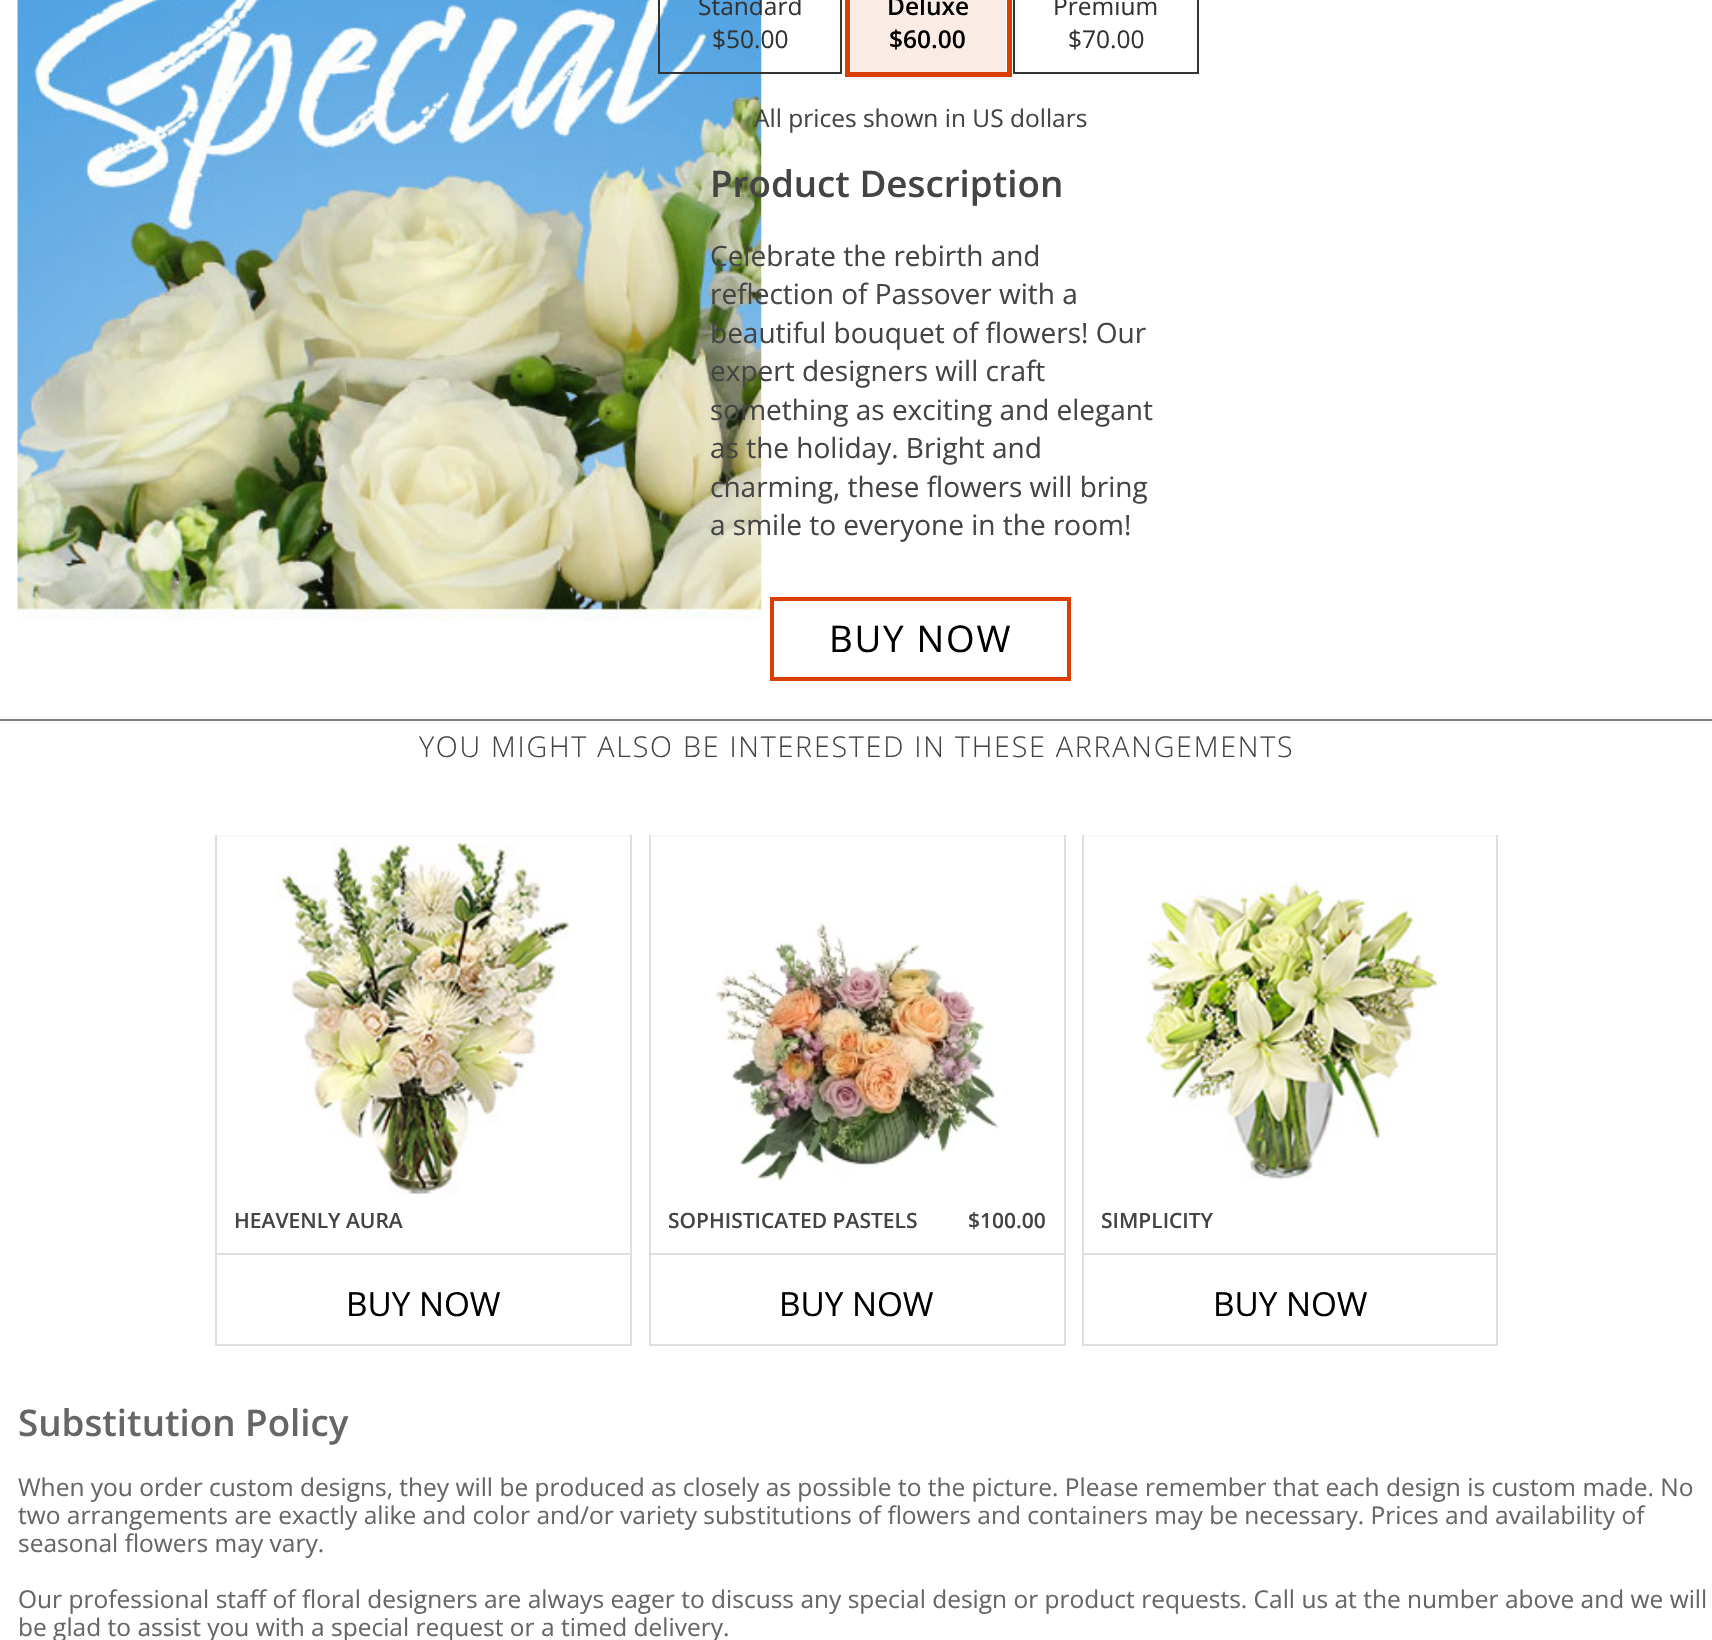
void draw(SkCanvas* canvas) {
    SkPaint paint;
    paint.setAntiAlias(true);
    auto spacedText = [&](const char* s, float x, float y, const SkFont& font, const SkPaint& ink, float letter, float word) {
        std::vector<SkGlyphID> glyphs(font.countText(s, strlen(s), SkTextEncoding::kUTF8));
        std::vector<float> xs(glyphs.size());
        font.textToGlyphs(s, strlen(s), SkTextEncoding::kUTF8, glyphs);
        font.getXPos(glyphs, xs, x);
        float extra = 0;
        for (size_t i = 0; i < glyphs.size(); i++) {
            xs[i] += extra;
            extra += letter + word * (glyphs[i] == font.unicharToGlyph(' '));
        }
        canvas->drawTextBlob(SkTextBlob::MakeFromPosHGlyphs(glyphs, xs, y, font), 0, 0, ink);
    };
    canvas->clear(0xFFFFFFFF);
    canvas->drawImageRect(SkImages::DeferredFromEncodedData(SkData::MakeFromFileName("img1.png")), SkRect::MakeXYWH(17, 0, 745, 622), SkSamplingOptions());
    paint.setStyle(SkPaint::kStroke_Style);
    paint.setStrokeWidth(2);
    paint.setColor(0xFF333333);
    canvas->drawRect(SkRect::MakeXYWH(659, -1, 182, 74), paint);
    SkFont font1(fontMgr->matchFamilyStyle("Open Sans", SkFontStyle::Normal()), 24.5f);
    font1.setSubpixel(true);
    paint.setStyle(SkPaint::kFill_Style);
    canvas->drawString("Standard", 698, 15, font1, paint);
    canvas->drawString("$50.00", 712, 48, font1, paint);
    paint.setStyle(SkPaint::kStroke_Style);
    paint.setStrokeWidth(5);
    paint.setColor(0xFFDA3E00);
    canvas->drawRect(SkRect::MakeXYWH(847.5f, -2.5f, 162, 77), paint);
    paint.setStyle(SkPaint::kFill_Style);
    paint.setColor(0xFFFBEBE5);
    canvas->drawRect(SkRect::MakeXYWH(851, 0, 155, 72), paint);
    SkFont font2(fontMgr->matchFamilyStyle("Open Sans", SkFontStyle(600, SkFontStyle::kNormal_Width, SkFontStyle::kUpright_Slant)), 24.5f);
    font2.setSubpixel(true);
    paint.setColor(0xFF000000);
    canvas->drawString("Deluxe", 887, 15, font2, paint);
    canvas->drawString("$60.00", 889, 48, font2, paint);
    paint.setStyle(SkPaint::kStroke_Style);
    paint.setStrokeWidth(2);
    paint.setColor(0xFF333333);
    canvas->drawRect(SkRect::MakeXYWH(1014, -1, 184, 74), paint);
    paint.setStyle(SkPaint::kFill_Style);
    canvas->drawString("Premium", 1053, 15, font1, paint);
    canvas->drawString("$70.00", 1068, 48, font1, paint);
    paint.setColor(0xFF444444);
    canvas->drawString("All prices shown in US dollars", 754, 127, font1, paint);
    SkFont font3(fontMgr->matchFamilyStyle("Open Sans", SkFontStyle(600, SkFontStyle::kNormal_Width, SkFontStyle::kUpright_Slant)), 36.75f);
    font3.setSubpixel(true);
    canvas->drawString("Product Description", 710, 197, font3, paint);
    SkFont font4(fontMgr->matchFamilyStyle("Open Sans", SkFontStyle::Normal()), 28);
    font4.setSubpixel(true);
    canvas->drawString("Celebrate the rebirth and", 710, 266, font4, paint);
    canvas->drawString("reflection of Passover with a", 710, 304, font4, paint);
    canvas->drawString("beautiful bouquet of flowers! Our", 710, 343, font4, paint);
    canvas->drawString("expert designers will craft", 710, 381, font4, paint);
    canvas->drawString("something as exciting and elegant", 710, 420, font4, paint);
    canvas->drawString("as the holiday. Bright and", 710, 458, font4, paint);
    canvas->drawString("charming, these flowers will bring", 710, 497, font4, paint);
    canvas->drawString("a smile to everyone in the room!", 710, 535, font4, paint);
    paint.setStyle(SkPaint::kStroke_Style);
    paint.setStrokeWidth(4);
    paint.setColor(0xFFDA3E00);
    canvas->drawRect(SkRect::MakeXYWH(772, 599, 297, 80), paint);
    SkFont font5(fontMgr->matchFamilyStyle("Open Sans", SkFontStyle::Normal()), 36.75f);
    font5.setSubpixel(true);
    paint.setStyle(SkPaint::kFill_Style);
    paint.setColor(0xFF000000);
    spacedText("BUY NOW", 829, 652, font5, paint, 1.75f, 0);
    paint.setColor(0xFF808080);
    canvas->drawRect(SkRect::MakeXYWH(0, 719, 1712, 2), paint);
    SkFont font6(fontMgr->matchFamilyStyle("Open Sans", SkFontStyle(300, SkFontStyle::kNormal_Width, SkFontStyle::kUpright_Slant)), 28.65f);
    font6.setSubpixel(true);
    paint.setColor(0xFF444444);
    spacedText("YOU MIGHT ALSO BE INTERESTED IN THESE ARRANGEMENTS", 419, 757, font6, paint, 1.75f, 0);
    paint.setColor(0xFFF9F9F9);
    canvas->drawRect(SkRect::MakeXYWH(215, 835, 417, 2), paint);
    paint.setColor(0xFFE2DEDD);
    canvas->drawRect(SkRect::MakeXYWH(630, 835, 2, 511), paint);
    canvas->drawRect(SkRect::MakeXYWH(215, 1344, 417, 2), paint);
    canvas->drawRect(SkRect::MakeXYWH(215, 835, 2, 511), paint);
    canvas->drawImageRect(SkImages::DeferredFromEncodedData(SkData::MakeFromFileName("img2.png")), SkRect::MakeXYWH(276, 843, 293, 351), SkSamplingOptions());
    SkFont font7(fontMgr->matchFamilyStyle("Open Sans", SkFontStyle(600, SkFontStyle::kNormal_Width, SkFontStyle::kUpright_Slant)), 21);
    font7.setSubpixel(true);
    paint.setColor(0xFF444444);
    canvas->drawString("HEAVENLY AURA", 234, 1228, font7, paint);
    paint.setColor(0xFFE2DEDD);
    canvas->drawRect(SkRect::MakeXYWH(217, 1253, 413, 2), paint);
    SkFont font8(fontMgr->matchFamilyStyle("Open Sans", SkFontStyle::Normal()), 33.25f);
    font8.setSubpixel(true);
    paint.setColor(0xFF000000);
    canvas->drawString("BUY NOW", 346, 1316, font8, paint);
    paint.setColor(0xFFF9F9F9);
    canvas->drawRect(SkRect::MakeXYWH(649, 835, 417, 2), paint);
    paint.setColor(0xFFE2DEDD);
    canvas->drawRect(SkRect::MakeXYWH(1064, 835, 2, 511), paint);
    canvas->drawRect(SkRect::MakeXYWH(649, 1344, 417, 2), paint);
    canvas->drawRect(SkRect::MakeXYWH(649, 835, 2, 511), paint);
    canvas->drawImageRect(SkImages::DeferredFromEncodedData(SkData::MakeFromFileName("img3.png")), SkRect::MakeXYWH(715, 922, 283, 260), SkSamplingOptions());
    canvas->save();
    canvas->clipRect(SkRect::MakeXYWH(669, 1206, 252, 30));
    paint.setColor(0xFF444444);
    canvas->drawString("SOPHISTICATED PASTELS", 668, 1228, font7, paint);
    canvas->restore();
    canvas->drawString("$100.00", 968, 1228, font7, paint);
    paint.setColor(0xFFE2DEDD);
    canvas->drawRect(SkRect::MakeXYWH(651, 1253, 413, 2), paint);
    paint.setColor(0xFF000000);
    canvas->drawString("BUY NOW", 779, 1316, font8, paint);
    paint.setColor(0xFFF9F9F9);
    canvas->drawRect(SkRect::MakeXYWH(1082, 835, 416, 2), paint);
    paint.setColor(0xFFE2DEDD);
    canvas->drawRect(SkRect::MakeXYWH(1496, 835, 2, 511), paint);
    canvas->drawRect(SkRect::MakeXYWH(1082, 1344, 416, 2), paint);
    canvas->drawRect(SkRect::MakeXYWH(1082, 835, 2, 511), paint);
    canvas->drawImageRect(SkImages::DeferredFromEncodedData(SkData::MakeFromFileName("img4.png")), SkRect::MakeXYWH(1144, 881, 293, 299), SkSamplingOptions());
    paint.setColor(0xFF444444);
    canvas->drawString("SIMPLICITY", 1101, 1228, font7, paint);
    paint.setColor(0xFFE2DEDD);
    canvas->drawRect(SkRect::MakeXYWH(1083, 1253, 413, 2), paint);
    paint.setColor(0xFF000000);
    canvas->drawString("BUY NOW", 1213, 1316, font8, paint);
    paint.setColor(0xFF666666);
    canvas->drawString("Substitution Policy", 18, 1436, font3, paint);
    canvas->drawString("When you order custom designs, they will be produced as closely as possible to the picture. Please remember that each design is custom made. No", 18, 1496, font1, paint);
    canvas->drawString("two arrangements are exactly alike and color and/or variety substitutions of flowers and containers may be necessary. Prices and availability of", 18, 1524, font1, paint);
    canvas->drawString("seasonal flowers may vary.", 18, 1552, font1, paint);
    canvas->drawString("Our professional staff of floral designers are always eager to discuss any special design or product requests. Call us at the number above and we will", 18, 1608, font1, paint);
    canvas->drawString("be glad to assist you with a special request or a timed delivery.", 18, 1636, font1, paint);
}
